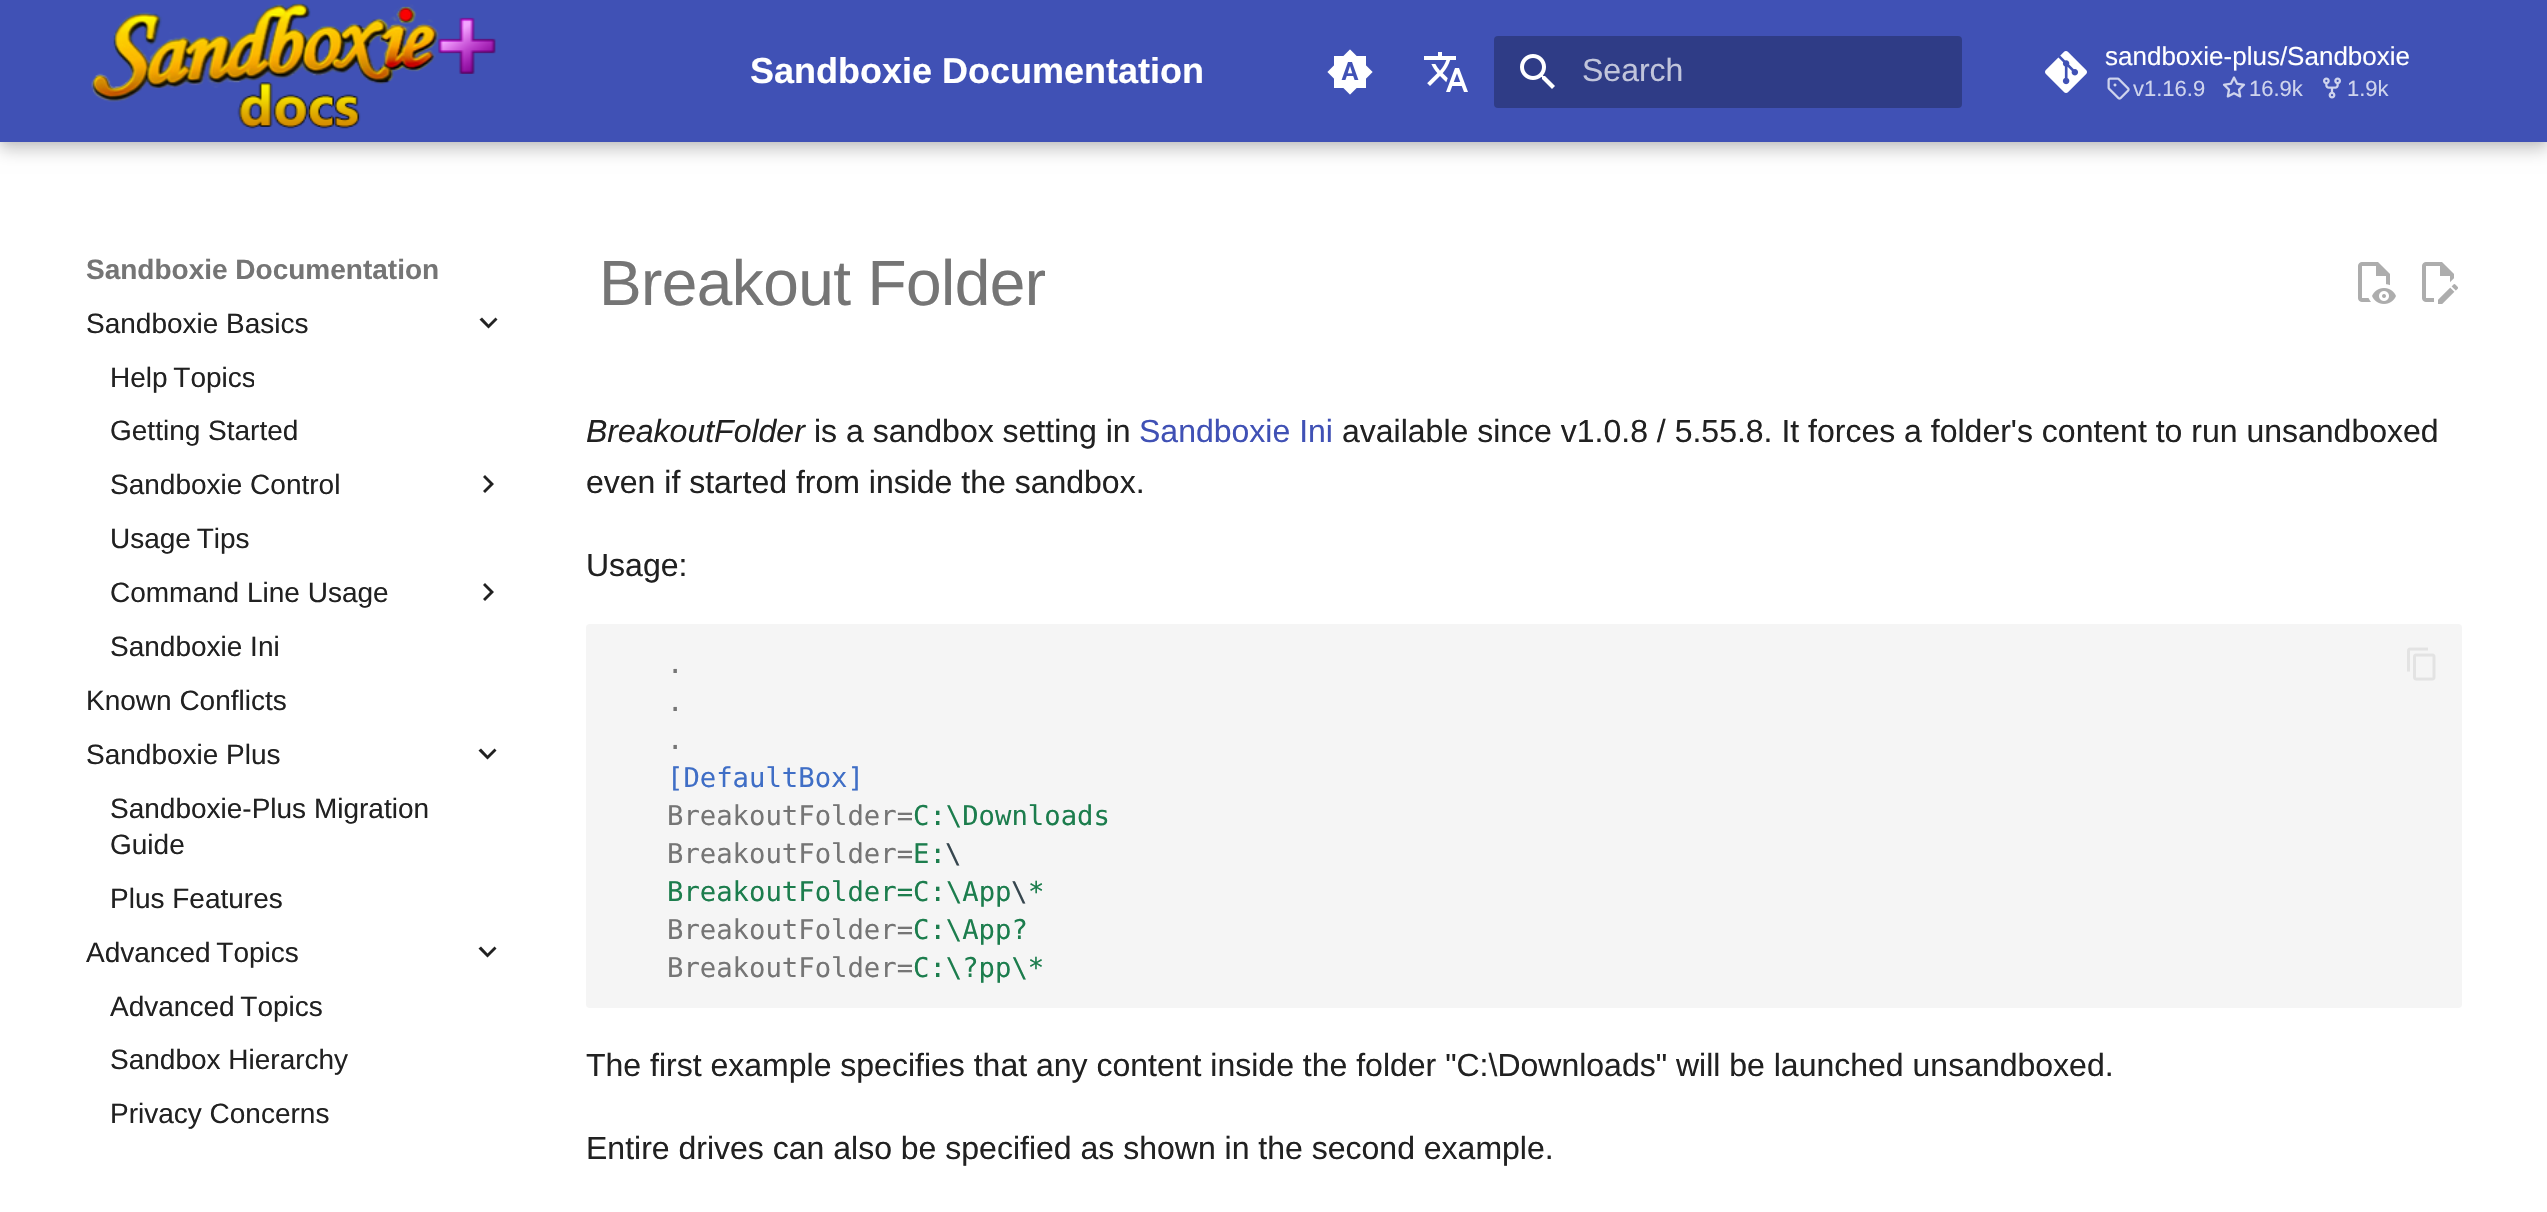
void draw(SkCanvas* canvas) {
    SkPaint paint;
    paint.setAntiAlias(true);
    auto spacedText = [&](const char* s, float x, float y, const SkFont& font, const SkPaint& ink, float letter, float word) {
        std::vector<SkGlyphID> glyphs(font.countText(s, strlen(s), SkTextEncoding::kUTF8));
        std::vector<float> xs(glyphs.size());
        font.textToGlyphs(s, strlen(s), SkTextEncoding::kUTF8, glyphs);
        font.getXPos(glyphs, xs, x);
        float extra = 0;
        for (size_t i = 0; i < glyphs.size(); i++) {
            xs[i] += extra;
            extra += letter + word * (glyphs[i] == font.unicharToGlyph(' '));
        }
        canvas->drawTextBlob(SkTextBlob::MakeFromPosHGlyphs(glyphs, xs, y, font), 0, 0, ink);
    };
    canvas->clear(0xFFFFFFFF);
    paint.setColor(0x33000000);
    paint.setMaskFilter(SkMaskFilter::MakeBlur(kNormal_SkBlurStyle, 8));
    canvas->drawRect(SkRect::MakeXYWH(0, 8, 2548, 142), paint);
    paint.setMaskFilter(nullptr);
    paint.setColor(0x1A000000);
    paint.setMaskFilter(SkMaskFilter::MakeBlur(kNormal_SkBlurStyle, 4));
    canvas->drawRect(SkRect::MakeXYWH(0, 0, 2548, 142), paint);
    paint.setMaskFilter(nullptr);
    paint.setColor(0xFF4051B5);
    canvas->drawRect(SkRect::MakeXYWH(0, 0, 2547, 142), paint);
    canvas->drawImageRect(SkImages::DeferredFromEncodedData(SkData::MakeFromFileName("img1.png")), SkRect::MakeXYWH(91, 2, 405, 127), SkSamplingOptions());
    SkFont font1(fontMgr->matchFamilyStyle("Liberation Sans", SkFontStyle::Bold()), 36);
    font1.setSubpixel(true);
    paint.setColor(0xFFFFFFFF);
    canvas->drawString("Sandboxie Documentation", 750, 83, font1, paint);
    canvas->drawImageRect(SkImages::DeferredFromEncodedData(SkData::MakeFromFileName("img2.png")), SkRect::MakeXYWH(1327, 49, 46, 46), SkSamplingOptions());
    canvas->drawImageRect(SkImages::DeferredFromEncodedData(SkData::MakeFromFileName("img3.png")), SkRect::MakeXYWH(1424, 52, 44, 40), SkSamplingOptions());
    paint.setColor(0xFF2F3C86);
    canvas->drawRoundRect(SkRect::MakeXYWH(1494, 36, 468, 72), 4, 4, paint);
    canvas->drawImageRect(SkImages::DeferredFromEncodedData(SkData::MakeFromFileName("img4.png")), SkRect::MakeXYWH(1520, 54, 35, 35), SkSamplingOptions());
    SkFont font2(fontMgr->matchFamilyStyle("Liberation Sans", SkFontStyle::Normal()), 32);
    font2.setSubpixel(true);
    paint.setColor(0xFFC1C5DB);
    canvas->drawString("Search", 1582, 81, font2, paint);
    canvas->drawImageRect(SkImages::DeferredFromEncodedData(SkData::MakeFromFileName("img5.png")), SkRect::MakeXYWH(2045, 51, 42, 42), SkSamplingOptions());
    SkFont font3(fontMgr->matchFamilyStyle("Liberation Sans", SkFontStyle::Normal()), 26);
    font3.setSubpixel(true);
    paint.setColor(0xFFFFFFFF);
    canvas->drawString("sandboxie-plus/Sandboxie", 2105, 65, font3, paint);
    canvas->drawImageRect(SkImages::DeferredFromEncodedData(SkData::MakeFromFileName("img6.png")), SkRect::MakeXYWH(2107, 77, 23, 23), SkSamplingOptions());
    SkFont font4(fontMgr->matchFamilyStyle("Liberation Sans", SkFontStyle::Normal()), 22);
    font4.setSubpixel(true);
    paint.setColor(0xFFCFD4ED);
    canvas->drawString("v1.16.9", 2133, 96, font4, paint);
    canvas->drawImageRect(SkImages::DeferredFromEncodedData(SkData::MakeFromFileName("img7.png")), SkRect::MakeXYWH(2222, 76, 24, 22), SkSamplingOptions());
    canvas->drawString("16.9k", 2249, 96, font4, paint);
    canvas->drawImageRect(SkImages::DeferredFromEncodedData(SkData::MakeFromFileName("img8.png")), SkRect::MakeXYWH(2323, 77, 18, 22), SkSamplingOptions());
    canvas->drawString("1.9k", 2347, 96, font4, paint);
    paint.setColor(0xFF212121);
    canvas->drawPath(SkPathBuilder().moveTo(482, 317.5f).lineTo(488.5f, 324.5f).lineTo(495.5f, 317.5f).lineTo(497.5f, 319.5f).lineTo(488.5f, 328.5f).lineTo(479.5f, 319.5f).close().detach(), paint);
    canvas->save();
    canvas->clipRect(SkRect::MakeXYWH(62, 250, 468, 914));
    canvas->clipPath(SkPathBuilder(SkPathFillType::kEvenOdd).moveTo(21, 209).lineTo(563, 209).lineTo(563, 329).lineTo(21, 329).close().moveTo(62, 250).lineTo(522, 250).lineTo(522, 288).lineTo(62, 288).close().detach(), true);
    paint.setColor(0xFFFFFFFF);
    paint.setMaskFilter(SkMaskFilter::MakeBlur(kNormal_SkBlurStyle, 8));
    canvas->drawRect(SkRect::MakeXYWH(46, 234, 492, 70), paint);
    paint.setMaskFilter(nullptr);
    canvas->restore();
    SkFont font5(fontMgr->matchFamilyStyle("Liberation Sans", SkFontStyle::Bold()), 28);
    font5.setSubpixel(true);
    paint.setColor(0xFF757575);
    canvas->drawString("Sandboxie Documentation", 86, 279, font5, paint);
    SkFont font6(fontMgr->matchFamilyStyle("Liberation Sans", SkFontStyle::Normal()), 28);
    font6.setSubpixel(true);
    paint.setColor(0xFF212121);
    canvas->drawString("Sandboxie Basics", 86, 333, font6, paint);
    canvas->save();
    canvas->clipRect(SkRect::MakeXYWH(110, 358, 144, 36));
    spacedText("Help Topics", 110, 387, font6, paint, 0, -2);
    canvas->restore();
    canvas->drawString("Getting Started", 110, 440, font6, paint);
    canvas->drawString("Sandboxie Control", 110, 494, font6, paint);
    canvas->drawPath(SkPathBuilder().moveTo(483, 491).lineTo(490, 484).lineTo(483, 477).lineTo(485, 475).lineTo(494, 484).lineTo(485, 493).close().detach(), paint);
    spacedText("Usage Tips", 110, 548, font6, paint, 0, -2);
    canvas->drawString("Command Line Usage", 110, 602, font6, paint);
    canvas->drawPath(SkPathBuilder().moveTo(483, 599).lineTo(490, 592).lineTo(483, 585).lineTo(485, 583).lineTo(494, 592).lineTo(485, 601).close().detach(), paint);
    canvas->drawString("Sandboxie Ini", 110, 656, font6, paint);
    canvas->drawString("Known Conflicts", 86, 710, font6, paint);
    canvas->drawString("Sandboxie Plus", 86, 764, font6, paint);
    canvas->drawPath(SkPathBuilder().moveTo(481, 748.5f).lineTo(487.5f, 755.5f).lineTo(494.5f, 748.5f).lineTo(496.5f, 750.5f).lineTo(487.5f, 759.5f).lineTo(478.5f, 750.5f).close().detach(), paint);
    canvas->drawString("Sandboxie-Plus Migration", 110, 818, font6, paint);
    canvas->drawString("Guide", 110, 854, font6, paint);
    canvas->drawString("Plus Features", 110, 908, font6, paint);
    spacedText("Advanced Topics", 86, 962, font6, paint, 0, -2);
    canvas->drawPath(SkPathBuilder().moveTo(481, 946.5f).lineTo(487.5f, 953.5f).lineTo(494.5f, 946.5f).lineTo(496.5f, 948.5f).lineTo(487.5f, 957.5f).lineTo(478.5f, 948.5f).close().detach(), paint);
    spacedText("Advanced Topics", 110, 1016, font6, paint, 0, -2);
    canvas->drawString("Sandbox Hierarchy", 110, 1069, font6, paint);
    canvas->drawString("Privacy Concerns", 110, 1123, font6, paint);
    SkFont font7(fontMgr->matchFamilyStyle("Liberation Sans", SkFontStyle::Normal()), 64);
    font7.setSubpixel(true);
    paint.setColor(0xFF757575);
    spacedText("Breakout Folder", 599, 305, font7, paint, -0.6f, 0);
    canvas->drawImageRect(SkImages::DeferredFromEncodedData(SkData::MakeFromFileName("img9.png")), SkRect::MakeXYWH(2358, 262, 38, 42), SkSamplingOptions());
    canvas->drawImageRect(SkImages::DeferredFromEncodedData(SkData::MakeFromFileName("img10.png")), SkRect::MakeXYWH(2422, 262, 36, 42), SkSamplingOptions());
    SkFont font8(fontMgr->matchFamilyStyle("Liberation Sans", SkFontStyle::Italic()), 32);
    font8.setSubpixel(true);
    paint.setColor(0xFF212121);
    canvas->drawString("BreakoutFolder", 586, 442, font8, paint);
    canvas->drawString("is a sandbox setting in", 814, 442, font2, paint);
    paint.setColor(0xFF4051B5);
    canvas->drawString("Sandboxie Ini", 1139, 442, font2, paint);
    paint.setColor(0xFF212121);
    canvas->drawString("available since v1.0.8 / 5.55.8. It forces a folder's content to run unsandboxed", 1342, 442, font2, paint);
    canvas->drawString("even if started from inside the sandbox.", 586, 493, font2, paint);
    canvas->drawString("Usage:", 586, 576, font2, paint);
    paint.setColor(0xFFF5F5F5);
    canvas->drawRoundRect(SkRect::MakeXYWH(586, 624, 1876, 384), 4, 4, paint);
    canvas->drawImageRect(SkImages::DeferredFromEncodedData(SkData::MakeFromFileName("img11.png")), SkRect::MakeXYWH(2407, 647, 29, 34), SkSamplingOptions());
    SkFont font9(fontMgr->matchFamilyStyle("DejaVu Sans Mono", SkFontStyle::Normal()), 27.25f);
    font9.setSubpixel(true);
    paint.setColor(0xFF757575);
    canvas->drawString(".", 667, 673, font9, paint);
    canvas->drawString(".", 667, 711, font9, paint);
    canvas->drawString(".", 667, 749, font9, paint);
    paint.setColor(0xFF3F6EC6);
    canvas->drawString("[DefaultBox]", 667, 787, font9, paint);
    paint.setColor(0xFF757575);
    canvas->drawString("BreakoutFolder=", 667, 825, font9, paint);
    paint.setColor(0xFF1C7D4D);
    canvas->drawString("C:\\Downloads", 913, 825, font9, paint);
    paint.setColor(0xFF757575);
    canvas->drawString("BreakoutFolder=", 667, 863, font9, paint);
    paint.setColor(0xFF1C7D4D);
    canvas->drawString("E:", 913, 863, font9, paint);
    paint.setColor(0xFF36464E);
    canvas->drawString("\\", 945, 863, font9, paint);
    paint.setColor(0xFF1C7D4D);
    canvas->drawString("BreakoutFolder=C:\\App *", 667, 901, font9, paint);
    paint.setColor(0xFF36464E);
    canvas->drawString("\\", 1011, 901, font9, paint);
    paint.setColor(0xFF757575);
    canvas->drawString("BreakoutFolder=", 667, 939, font9, paint);
    paint.setColor(0xFF1C7D4D);
    canvas->drawString("C:\\App?", 913, 939, font9, paint);
    paint.setColor(0xFF757575);
    canvas->drawString("BreakoutFolder=", 667, 977, font9, paint);
    paint.setColor(0xFF1C7D4D);
    canvas->drawString("C:\\?pp\\*", 913, 977, font9, paint);
    paint.setColor(0xFF212121);
    canvas->drawString("The first example specifies that any content inside the folder \"C:\\Downloads\" will be launched unsandboxed.", 586, 1076, font2, paint);
    canvas->drawString("Entire drives can also be specified as shown in the second example.", 586, 1159, font2, paint);
}
